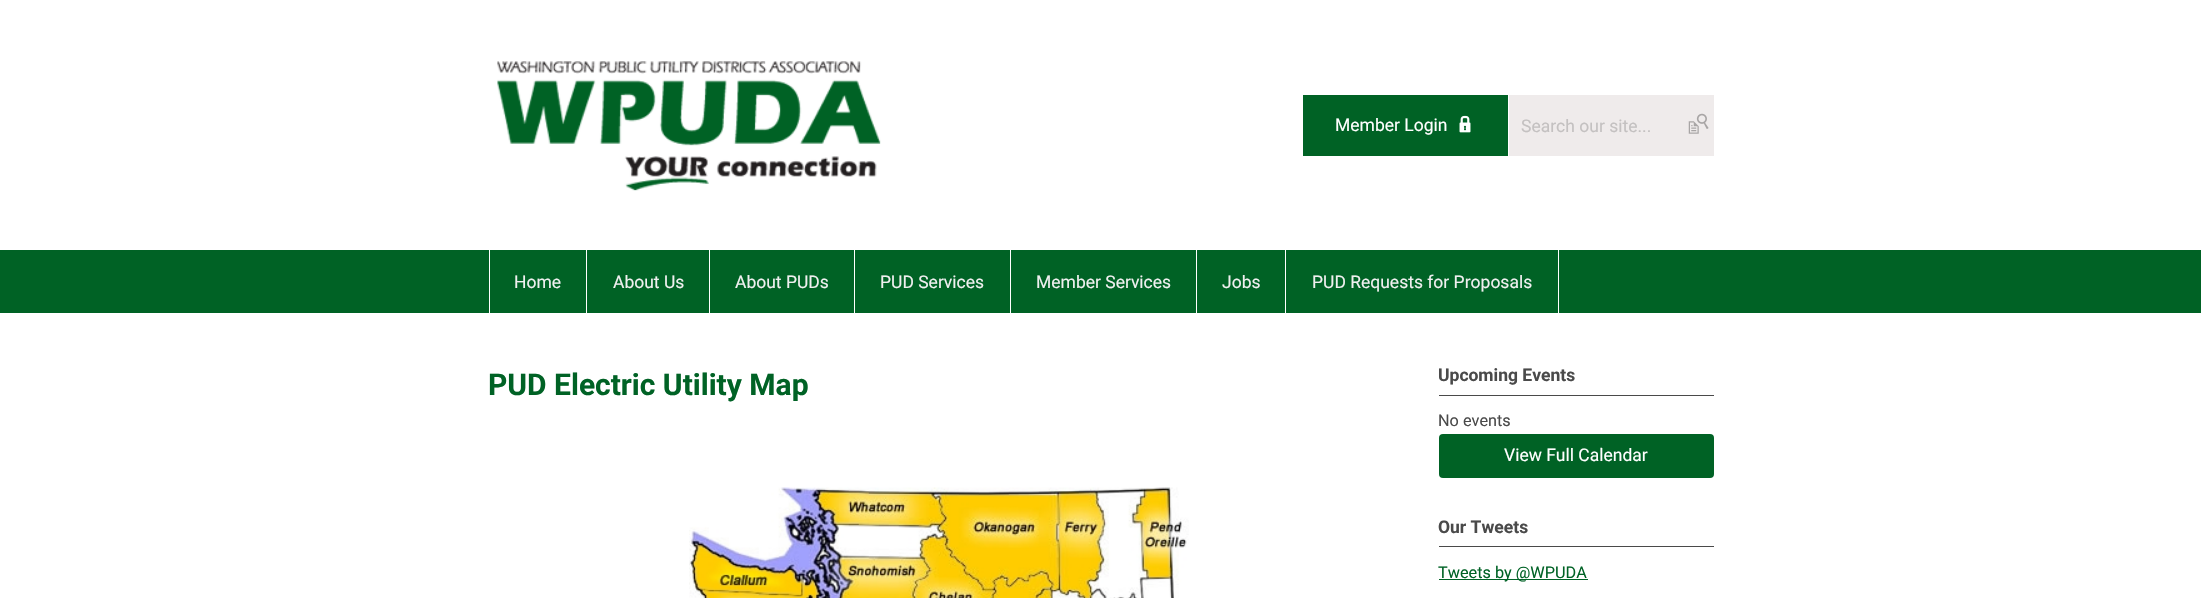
void draw(SkCanvas* canvas) {
    SkPaint paint;
    paint.setAntiAlias(true);
    canvas->clear(0xFFFFFFFF);
    canvas->drawImageRect(SkImages::DeferredFromEncodedData(SkData::MakeFromFileName("img1.png")), SkRect::MakeXYWH(497, 61, 384, 130), SkSamplingOptions());
    paint.setColor(0xFF006225);
    canvas->drawRect(SkRect::MakeXYWH(1303, 95, 205, 61), paint);
    SkFont font1(fontMgr->matchFamilyStyle("Roboto", SkFontStyle::Normal()), 17.5f);
    font1.setSubpixel(true);
    paint.setColor(0xFFFFFFFF);
    canvas->drawString("Member Login", 1335, 131, font1, paint);
    canvas->drawImageRect(SkImages::DeferredFromEncodedData(SkData::MakeFromFileName("img2.png")), SkRect::MakeXYWH(1459, 115, 12, 18), SkSamplingOptions());
    paint.setColor(0xFFEFEBEB);
    canvas->drawRect(SkRect::MakeXYWH(1509, 95, 205, 61), paint);
    paint.setColor(0xFFC4C1C1);
    canvas->drawString("Search our site...", 1521, 132, font1, paint);
    canvas->drawImageRect(SkImages::DeferredFromEncodedData(SkData::MakeFromFileName("img3.png")), SkRect::MakeXYWH(1688, 113, 21, 21), SkSamplingOptions());
    paint.setColor(0xFF006225);
    canvas->drawRect(SkRect::MakeXYWH(0, 250, 2201, 63), paint);
    paint.setColor(0xFFFFFFFF);
    canvas->drawRect(SkRect::MakeXYWH(489, 250, 1, 63), paint);
    canvas->drawRect(SkRect::MakeXYWH(586, 250, 1, 63), paint);
    paint.setColor(0xFFF0F0F0);
    canvas->drawString("Home", 514, 288, font1, paint);
    paint.setColor(0xFFFFFFFF);
    canvas->drawRect(SkRect::MakeXYWH(709, 250, 1, 63), paint);
    paint.setColor(0xFFF0F0F0);
    canvas->drawString("About Us", 613, 288, font1, paint);
    paint.setColor(0xFFFFFFFF);
    canvas->drawRect(SkRect::MakeXYWH(854, 250, 1, 63), paint);
    paint.setColor(0xFFF0F0F0);
    canvas->drawString("About PUDs", 735, 288, font1, paint);
    paint.setColor(0xFFFFFFFF);
    canvas->drawRect(SkRect::MakeXYWH(1010, 250, 1, 63), paint);
    paint.setColor(0xFFF0F0F0);
    canvas->drawString("PUD Services", 880, 288, font1, paint);
    paint.setColor(0xFFFFFFFF);
    canvas->drawRect(SkRect::MakeXYWH(1196, 250, 1, 63), paint);
    paint.setColor(0xFFF0F0F0);
    canvas->drawString("Member Services", 1036, 288, font1, paint);
    paint.setColor(0xFFFFFFFF);
    canvas->drawRect(SkRect::MakeXYWH(1285, 250, 1, 63), paint);
    paint.setColor(0xFFF0F0F0);
    canvas->drawString("Jobs", 1222, 288, font1, paint);
    paint.setColor(0xFFFFFFFF);
    canvas->drawRect(SkRect::MakeXYWH(1558, 250, 1, 63), paint);
    paint.setColor(0xFFF0F0F0);
    canvas->drawString("PUD Requests for Proposals", 1312, 288, font1, paint);
    SkFont font2(fontMgr->matchFamilyStyle("Roboto", SkFontStyle::Bold()), 30);
    font2.setSubpixel(true);
    paint.setColor(0xFF006225);
    canvas->drawString("PUD Electric Utility Map", 488, 395, font2, paint);
    canvas->drawImageRect(SkImages::DeferredFromEncodedData(SkData::MakeFromFileName("img4.png")), SkRect::MakeXYWH(689, 487, 500, 111), SkSamplingOptions());
    paint.setColor(0xFF4A4A4A);
    canvas->drawRect(SkRect::MakeXYWH(1439, 395, 275, 1), paint);
    SkFont font3(fontMgr->matchFamilyStyle("Roboto", SkFontStyle::Bold()), 17.5f);
    font3.setSubpixel(true);
    canvas->drawString("Upcoming Events", 1438, 381, font3, paint);
    SkFont font4(fontMgr->matchFamilyStyle("Roboto", SkFontStyle::Normal()), 16.25f);
    font4.setSubpixel(true);
    canvas->drawString("No events", 1438, 426, font4, paint);
    paint.setColor(0xFF006225);
    canvas->drawRoundRect(SkRect::MakeXYWH(1439, 434, 275, 44), 4, 4, paint);
    paint.setColor(0xFFFFFFFF);
    canvas->drawString("View Full Calendar", 1504, 461, font1, paint);
    paint.setColor(0xFF4A4A4A);
    canvas->drawRect(SkRect::MakeXYWH(1439, 546, 275, 1), paint);
    canvas->drawString("Our Tweets", 1438, 533, font3, paint);
    paint.setColor(0xFF006225);
    canvas->drawRect(SkRect::MakeXYWH(1439, 579, 149, 1), paint);
    canvas->drawString("Tweets by @WPUDA", 1438, 578, font4, paint);
}
